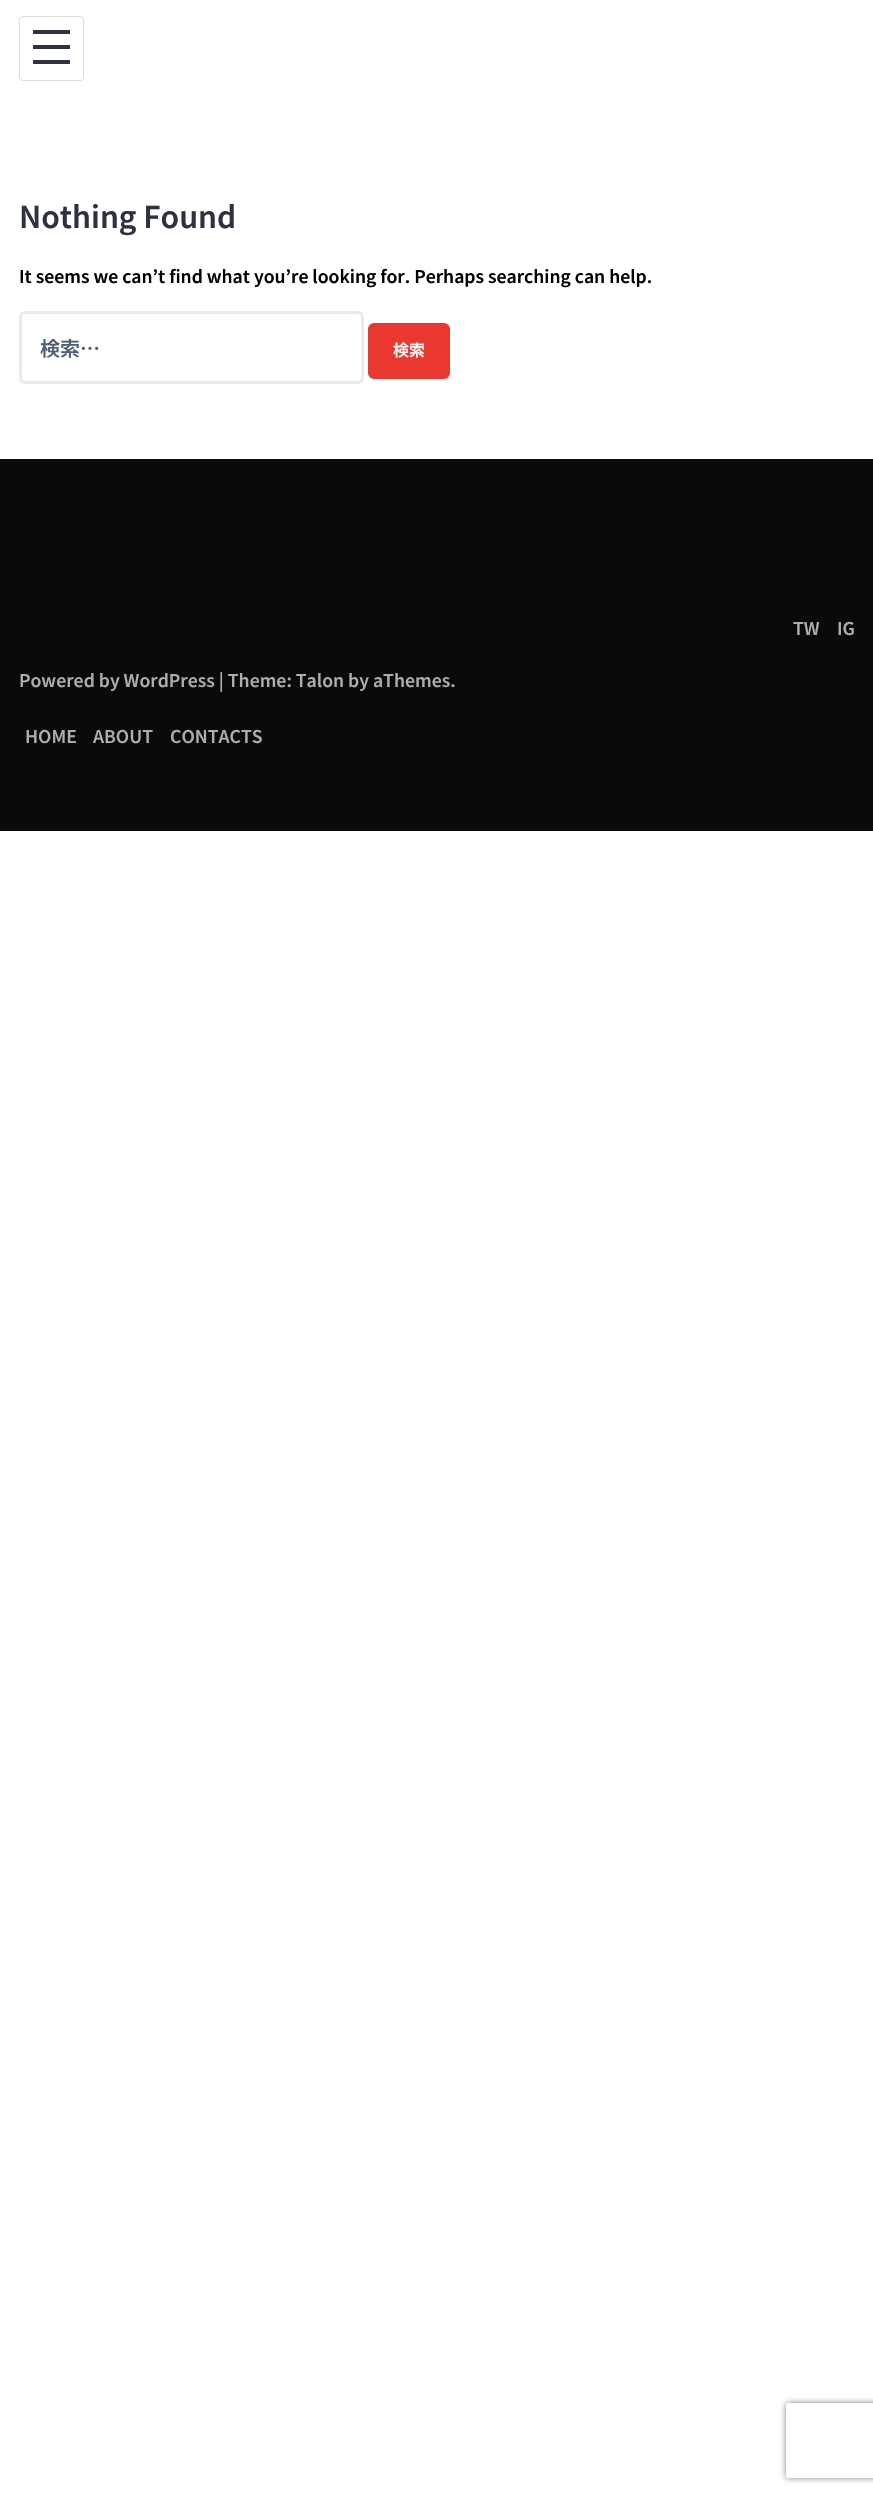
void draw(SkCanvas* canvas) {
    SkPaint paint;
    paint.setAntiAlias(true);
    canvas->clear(0xFFFFFFFF);
    paint.setStyle(SkPaint::kStroke_Style);
    paint.setStrokeWidth(1);
    paint.setColor(0xFFDDDDDD);
    canvas->drawRoundRect(SkRect::MakeXYWH(19.5f, 16.5f, 64, 64), 3.5f, 3.5f, paint);
    paint.setStyle(SkPaint::kFill_Style);
    paint.setColor(0xFF2D3142);
    canvas->drawRect(SkRect::MakeXYWH(33, 30, 37, 4), paint);
    canvas->drawRect(SkRect::MakeXYWH(33, 45, 37, 4), paint);
    canvas->drawRect(SkRect::MakeXYWH(33, 60, 37, 4), paint);
    SkFont font1(fontMgr->matchFamilyStyle("Noto Sans JP", SkFontStyle(100, SkFontStyle::kNormal_Width, SkFontStyle::kUpright_Slant)), 30);
    font1.setSubpixel(true);
    canvas->drawString("Nothing Found", 19, 228, font1, paint);
    SkFont font2(fontMgr->matchFamilyStyle("Noto Sans JP", SkFontStyle(100, SkFontStyle::kNormal_Width, SkFontStyle::kUpright_Slant)), 17.5f);
    font2.setSubpixel(true);
    paint.setColor(0xFF000000);
    canvas->drawString("It seems we can’t find what you’re looking for. Perhaps searching can help.", 19, 283, font2, paint);
    paint.setStyle(SkPaint::kStroke_Style);
    paint.setStrokeWidth(3);
    paint.setColor(0xFFE5EAF5);
    canvas->drawRoundRect(SkRect::MakeXYWH(20.5f, 312.5f, 342, 70), 4.5f, 4.5f, paint);
    SkFont font3(fontMgr->matchFamilyStyle("Noto Sans JP", SkFontStyle(100, SkFontStyle::kNormal_Width, SkFontStyle::kUpright_Slant)), 20);
    font3.setSubpixel(true);
    paint.setStyle(SkPaint::kFill_Style);
    paint.setColor(0xFF4F5D75);
    canvas->drawString("検索…", 40, 356, font3, paint);
    paint.setColor(0xFFE8382F);
    canvas->drawRoundRect(SkRect::MakeXYWH(368, 323, 82, 56), 6, 6, paint);
    SkFont font4(fontMgr->matchFamilyStyle("Noto Sans JP", SkFontStyle(100, SkFontStyle::kNormal_Width, SkFontStyle::kUpright_Slant)), 16);
    font4.setSubpixel(true);
    paint.setColor(0xFFFFFFFF);
    canvas->drawString("検索", 393, 356, font4, paint);
    paint.setColor(0xFF0A0A0A);
    canvas->drawRect(SkRect::MakeXYWH(0, 459, 873, 372), paint);
    paint.setColor(0xFFADADAD);
    canvas->drawString("TW", 793, 635, font2, paint);
    canvas->drawString("IG", 837, 635, font2, paint);
    canvas->drawString("Powered by WordPress | Theme: Talon by aThemes.", 19, 687, font2, paint);
    canvas->drawString("HOME", 25, 743, font2, paint);
    canvas->drawString("ABOUT", 93, 743, font2, paint);
    canvas->drawString("CONTACTS", 170, 743, font2, paint);
    canvas->save();
    canvas->clipPath(SkPathBuilder(SkPathFillType::kEvenOdd).moveTo(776, 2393).lineTo(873, 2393).lineTo(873, 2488).lineTo(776, 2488).close().moveTo(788.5f, 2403).lineTo(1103.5f, 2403).cubicTo(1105, 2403, 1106, 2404, 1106, 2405.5f).lineTo(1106, 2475.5f).cubicTo(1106, 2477, 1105, 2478, 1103.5f, 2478).lineTo(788.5f, 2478).cubicTo(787, 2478, 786, 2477, 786, 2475.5f).lineTo(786, 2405.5f).cubicTo(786, 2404, 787, 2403, 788.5f, 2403).close().detach(), true);
    paint.setColor(0xFF808080);
    paint.setMaskFilter(SkMaskFilter::MakeBlur(kNormal_SkBlurStyle, 3));
    canvas->drawRoundRect(SkRect::MakeXYWH(786, 2403, 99, 75), 2.5f, 2.5f, paint);
    paint.setMaskFilter(nullptr);
    canvas->restore();
}
